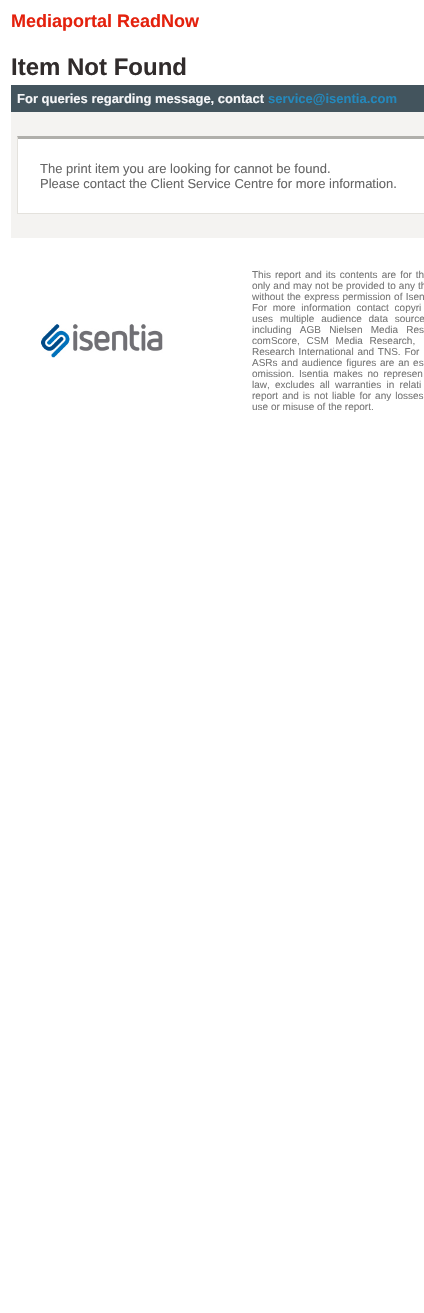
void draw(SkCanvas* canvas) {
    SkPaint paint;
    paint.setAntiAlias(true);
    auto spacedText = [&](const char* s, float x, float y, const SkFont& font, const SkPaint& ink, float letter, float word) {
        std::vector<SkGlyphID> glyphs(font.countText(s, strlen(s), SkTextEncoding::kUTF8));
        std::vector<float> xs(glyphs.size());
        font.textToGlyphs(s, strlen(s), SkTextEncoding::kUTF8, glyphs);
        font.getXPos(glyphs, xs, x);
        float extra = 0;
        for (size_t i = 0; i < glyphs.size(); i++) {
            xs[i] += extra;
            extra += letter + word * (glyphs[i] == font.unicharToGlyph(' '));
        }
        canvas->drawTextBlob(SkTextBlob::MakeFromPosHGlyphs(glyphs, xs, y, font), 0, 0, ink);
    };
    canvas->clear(0xFFFFFFFF);
    SkFont font1(fontMgr->matchFamilyStyle("Liberation Sans", SkFontStyle::Bold()), 18);
    font1.setSubpixel(true);
    paint.setColor(0xFFE4210D);
    canvas->drawString("Mediaportal ReadNow", 11, 27, font1, paint);
    SkFont font2(fontMgr->matchFamilyStyle("Liberation Sans", SkFontStyle::Bold()), 24);
    font2.setSubpixel(true);
    paint.setColor(0xFF312C2C);
    canvas->drawString("Item Not Found", 11, 75, font2, paint);
    paint.setColor(0xFFF4F3F1);
    canvas->drawRect(SkRect::MakeXYWH(11, 112, 413, 126), paint);
    paint.setColor(0xFF43545D);
    canvas->drawRect(SkRect::MakeXYWH(11, 85, 413, 27), paint);
    SkFont font3(fontMgr->matchFamilyStyle("Liberation Sans", SkFontStyle::Bold()), 13);
    font3.setSubpixel(true);
    paint.setColor(0xFFF5F6F8);
    canvas->drawString("For queries regarding message, contact", 17, 103, font3, paint);
    paint.setColor(0xFF2388BC);
    canvas->drawString("service@isentia.com", 268, 103, font3, paint);
    paint.setColor(0xFFFFFFFF);
    canvas->drawRect(SkRect::MakeXYWH(18, 139, 406, 74), paint);
    paint.setColor(0xFFB0AFAB);
    canvas->drawPath(SkPathBuilder().moveTo(17, 136).lineTo(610, 136).lineTo(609, 139).lineTo(18, 139).close().detach(), paint);
    paint.setColor(0xFFE4E2DD);
    canvas->drawRect(SkRect::MakeXYWH(17, 213, 407, 1), paint);
    canvas->drawPath(SkPathBuilder().moveTo(17, 214).lineTo(17, 136).lineTo(18, 139).lineTo(18, 213).close().detach(), paint);
    SkFont font4(fontMgr->matchFamilyStyle("Liberation Sans", SkFontStyle::Normal()), 13);
    font4.setSubpixel(true);
    paint.setColor(0xFF666666);
    canvas->drawString("The print item you are looking for cannot be found.", 40, 173, font4, paint);
    canvas->drawString("Please contact the Client Service Centre for more information.", 40, 188, font4, paint);
    canvas->drawImageRect(SkImages::DeferredFromEncodedData(SkData::MakeFromFileName("img1.png")), SkRect::MakeXYWH(41, 324, 122, 34), SkSamplingOptions());
    SkFont font5(fontMgr->matchFamilyStyle("Liberation Sans", SkFontStyle::Normal()), 10);
    font5.setSubpixel(true);
    paint.setColor(0xFF777777);
    spacedText("This report and its contents are for th", 252, 278, font5, paint, 0, 1.25f);
    spacedText("only and may not be provided to any th", 252, 289, font5, paint, 0, 0.25f);
    spacedText("without the express permission of Isen", 252, 300, font5, paint, 0, 0.5f);
    spacedText("For more information contact copyri", 252, 311, font5, paint, 0, 3);
    spacedText("uses multiple audience data source", 252, 322, font5, paint, 0, 4);
    spacedText("including AGB Nielsen Media Res", 252, 333, font5, paint, 0, 5.5f);
    spacedText("comScore, CSM Media Research,", 252, 344, font5, paint, 0, 4);
    spacedText("Research International and TNS. For", 252, 355, font5, paint, 0, 1);
    spacedText("ASRs and audience figures are an est", 252, 366, font5, paint, 0, 1);
    spacedText("omission. Isentia makes no represen", 252, 377, font5, paint, 0, 2);
    spacedText("law, excludes all warranties in relati", 252, 388, font5, paint, 0, 2.5f);
    spacedText("report and is not liable for any losses", 252, 399, font5, paint, 0, 1.25f);
    canvas->drawString("use or misuse of the report.", 252, 410, font5, paint);
}
